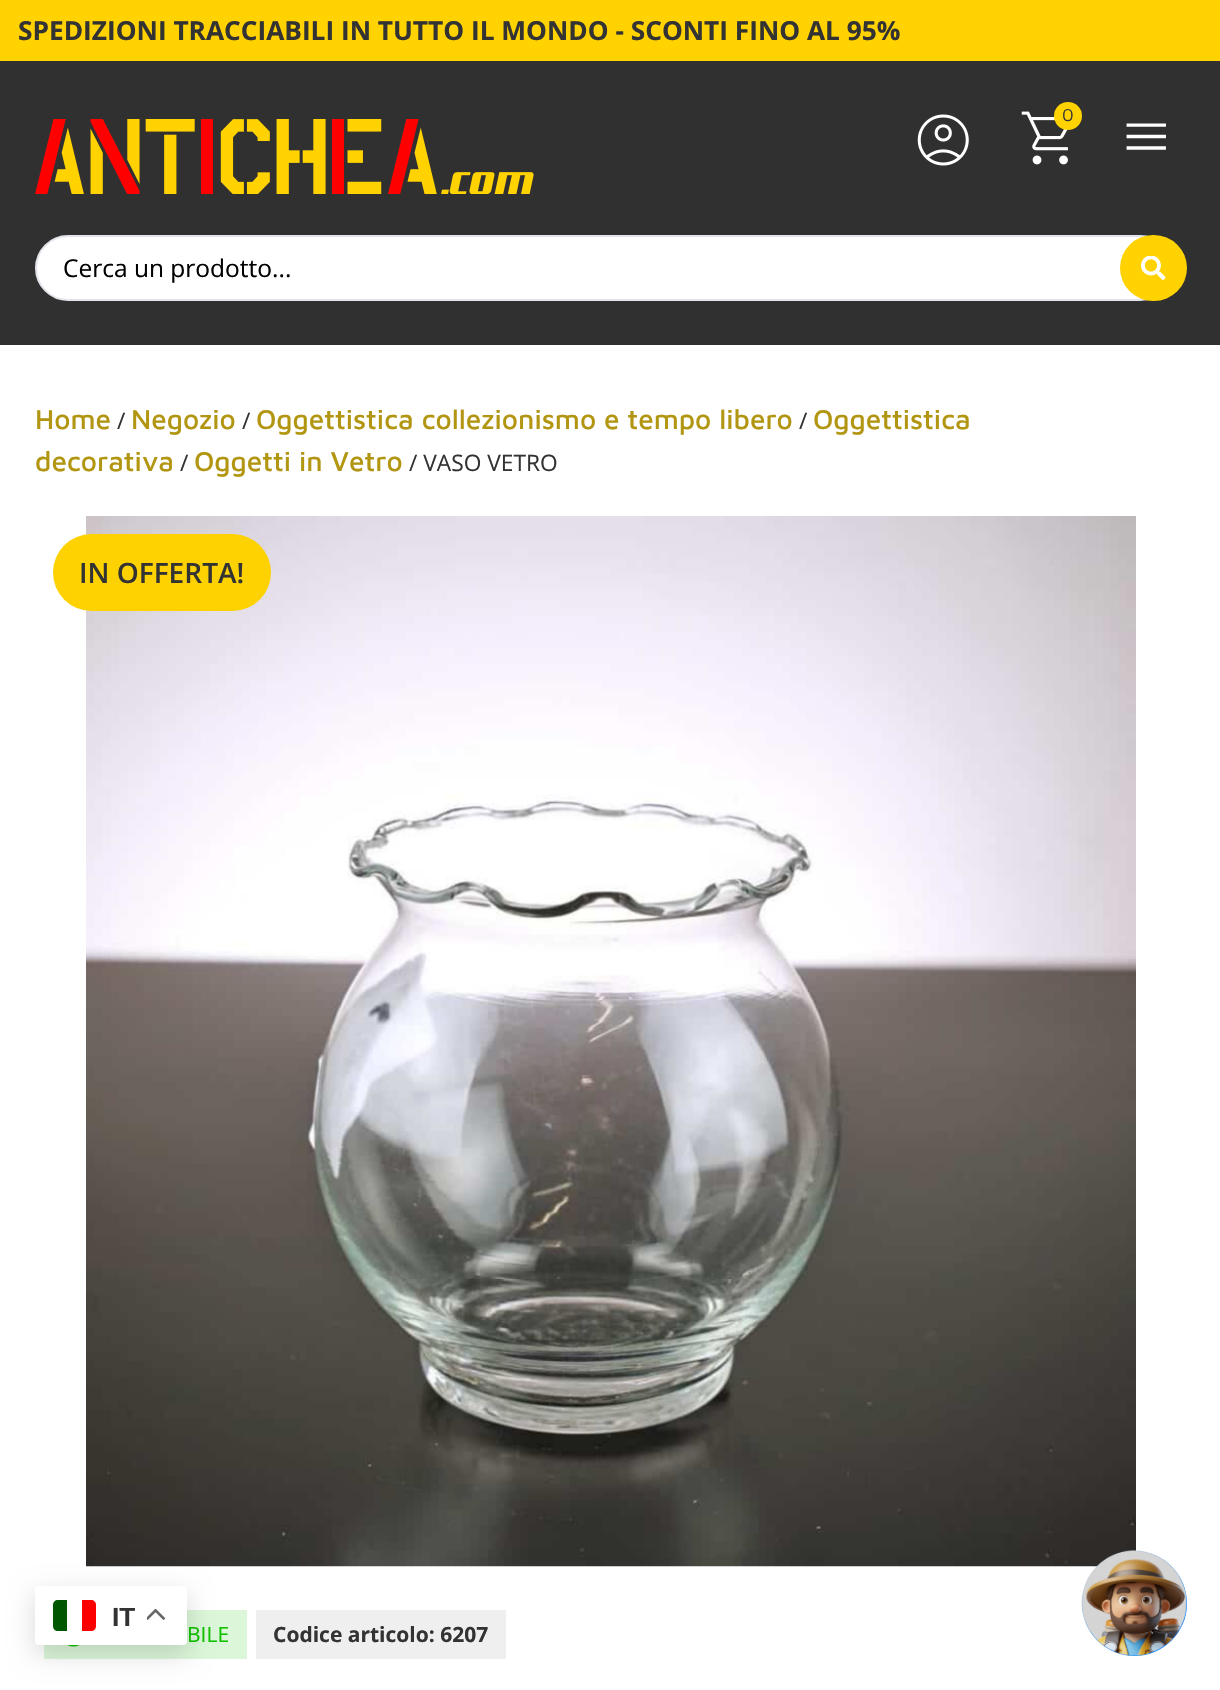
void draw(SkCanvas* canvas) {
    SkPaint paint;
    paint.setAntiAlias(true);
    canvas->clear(0xFFFFFFFF);
    paint.setColor(0xFFFFD200);
    canvas->drawRect(SkRect::MakeXYWH(0, 0, 1220, 61), paint);
    SkFont font1(fontMgr->matchFamilyStyle("Open Sans", SkFontStyle::Bold()), 26.25f);
    font1.setSubpixel(true);
    paint.setColor(0xFF333333);
    canvas->drawString("SPEDIZIONI TRACCIABILI IN TUTTO IL MONDO - SCONTI FINO AL 95%", 18, 40, font1, paint);
    paint.setColor(0xFF303030);
    canvas->drawRect(SkRect::MakeXYWH(0, 61, 1220, 284), paint);
    canvas->drawImageRect(SkImages::DeferredFromEncodedData(SkData::MakeFromFileName("img1.png")), SkRect::MakeXYWH(917, 114, 52, 52), SkSamplingOptions());
    canvas->drawImageRect(SkImages::DeferredFromEncodedData(SkData::MakeFromFileName("img2.png")), SkRect::MakeXYWH(1021, 111, 47, 54), SkSamplingOptions());
    paint.setColor(0xFFFFD200);
    canvas->drawCircle(1068, 116, 14, paint);
    SkFont font2(fontMgr->matchFamilyStyle("Maven Pro", SkFontStyle::Normal()), 18);
    font2.setSubpixel(true);
    paint.setColor(0xFF333333);
    canvas->drawString("0", 1062, 121, font2, paint);
    canvas->drawImageRect(SkImages::DeferredFromEncodedData(SkData::MakeFromFileName("img3.png")), SkRect::MakeXYWH(1126, 123, 40, 27), SkSamplingOptions());
    canvas->drawImageRect(SkImages::DeferredFromEncodedData(SkData::MakeFromFileName("img4.png")), SkRect::MakeXYWH(35, 119, 499, 75), SkSamplingOptions());
    paint.setColor(0xFFFFFFFF);
    canvas->drawRoundRect(SkRect::MakeXYWH(36, 236, 1136, 64), 32, 32, paint);
    paint.setStyle(SkPaint::kStroke_Style);
    paint.setStrokeWidth(2);
    paint.setColor(0xFFE1E5EB);
    canvas->drawRoundRect(SkRect::MakeXYWH(36, 236, 1136, 64), 32, 32, paint);
    SkFont font3(fontMgr->matchFamilyStyle("Open Sans", SkFontStyle::Normal()), 24.5f);
    font3.setSubpixel(true);
    paint.setStyle(SkPaint::kFill_Style);
    paint.setColor(0xFF000000);
    canvas->drawString("Cerca un prodotto...", 63, 277, font3, paint);
    paint.setColor(0xFFFFD200);
    canvas->drawRoundRect(SkRect::MakeXYWH(1120, 235, 67, 66), 33, 33, paint);
    canvas->drawImageRect(SkImages::DeferredFromEncodedData(SkData::MakeFromFileName("img5.png")), SkRect::MakeXYWH(1141, 256, 25, 24), SkSamplingOptions());
    SkFont font4(fontMgr->matchFamilyStyle("Maven Pro", SkFontStyle(500, SkFontStyle::kNormal_Width, SkFontStyle::kUpright_Slant)), 28);
    font4.setSubpixel(true);
    paint.setColor(0xFFB29611);
    canvas->drawString("Home", 35, 429, font4, paint);
    SkFont font5(fontMgr->matchFamilyStyle("Open Sans", SkFontStyle::Normal()), 22.75f);
    font5.setSubpixel(true);
    paint.setColor(0xFF333333);
    canvas->drawString("/", 117, 429, font5, paint);
    paint.setColor(0xFFB29611);
    canvas->drawString("Negozio", 131, 429, font4, paint);
    paint.setColor(0xFF333333);
    canvas->drawString("/", 242, 429, font5, paint);
    paint.setColor(0xFFB29611);
    canvas->drawString("Oggettistica collezionismo e tempo libero", 256, 429, font4, paint);
    paint.setColor(0xFF333333);
    canvas->drawString("/", 799, 429, font5, paint);
    paint.setColor(0xFFB29611);
    canvas->drawString("Oggettistica", 813, 429, font4, paint);
    canvas->drawString("decorativa", 35, 471, font4, paint);
    paint.setColor(0xFF333333);
    canvas->drawString("/", 180, 471, font5, paint);
    paint.setColor(0xFFB29611);
    canvas->drawString("Oggetti in Vetro", 194, 471, font4, paint);
    paint.setColor(0xFF333333);
    canvas->drawString("/ VASO VETRO", 409, 471, font5, paint);
    canvas->drawImageRect(SkImages::DeferredFromEncodedData(SkData::MakeFromFileName("img6.png")), SkRect::MakeXYWH(86, 516, 1050, 1051), SkSamplingOptions());
    paint.setColor(0xFFFDD200);
    canvas->drawRoundRect(SkRect::MakeXYWH(53, 534, 218, 77), 38.5f, 38.5f, paint);
    SkFont font6(fontMgr->matchFamilyStyle("Open Sans", SkFontStyle(600, SkFontStyle::kNormal_Width, SkFontStyle::kUpright_Slant)), 28);
    font6.setSubpixel(true);
    paint.setColor(0xFF333333);
    canvas->drawString("IN OFFERTA!", 79, 583, font6, paint);
    paint.setColor(0xFFDBF6D9);
    canvas->drawRect(SkRect::MakeXYWH(44, 1610, 203, 49), paint);
    paint.setColor(0xFF10C100);
    canvas->drawPath(SkPathBuilder().moveTo(73.5f, 1622.5f).cubicTo(58, 1622.5f, 58, 1646.5f, 73.5f, 1646.5f).cubicTo(89, 1646.5f, 89, 1622.5f, 73.5f, 1622.5f).close().detach(), paint);
    SkFont font7(fontMgr->matchFamilyStyle("Open Sans", SkFontStyle::Normal()), 21);
    font7.setSubpixel(true);
    canvas->drawString("BILE", 187, 1642, font7, paint);
    paint.setColor(0xFFEFEFEF);
    canvas->drawRect(SkRect::MakeXYWH(256, 1610, 250, 49), paint);
    SkFont font8(fontMgr->matchFamilyStyle("Open Sans", SkFontStyle::Bold()), 21);
    font8.setSubpixel(true);
    paint.setColor(0xFF333333);
    canvas->drawString("Codice articolo: 6207", 273, 1642, font8, paint);
    paint.setColor(0xFF007BFF);
    canvas->drawCircle(1134.5f, 1603.5f, 52.5f, paint);
    canvas->drawImageRect(SkImages::DeferredFromEncodedData(SkData::MakeFromFileName("img7.png")), SkRect::MakeXYWH(1081, 1550, 106, 106), SkSamplingOptions());
    paint.setColor(0x26000000);
    paint.setMaskFilter(SkMaskFilter::MakeBlur(kNormal_SkBlurStyle, 13));
    canvas->drawRoundRect(SkRect::MakeXYWH(35, 1594, 152, 60), 4, 4, paint);
    paint.setMaskFilter(nullptr);
    paint.setColor(0xFFFFFFFF);
    canvas->drawRoundRect(SkRect::MakeXYWH(35, 1586, 152, 59), 4, 4, paint);
    paint.setColor(0xFF005700);
    canvas->drawPath(SkPathBuilder().moveTo(58, 1600).lineTo(67, 1600).lineTo(67, 1631).lineTo(58, 1631).cubicTo(55, 1631, 53, 1629, 53, 1626).lineTo(53, 1605).cubicTo(53, 1602, 55, 1600, 58, 1600).close().detach(), paint);
    paint.setColor(0xFFFC0000);
    canvas->drawPath(SkPathBuilder().moveTo(82, 1600).lineTo(91, 1600).cubicTo(94, 1600, 96, 1602, 96, 1605).lineTo(96, 1626).cubicTo(96, 1629, 94, 1631, 91, 1631).lineTo(82, 1631).close().detach(), paint);
    SkFont font9(fontMgr->matchFamilyStyle("Liberation Sans", SkFontStyle::Bold()), 26.25f);
    font9.setSubpixel(true);
    paint.setColor(0xFF333333);
    canvas->drawString("IT", 112, 1626, font9, paint);
    canvas->drawImageRect(SkImages::DeferredFromEncodedData(SkData::MakeFromFileName("img8.png")), SkRect::MakeXYWH(147, 1608, 19, 12), SkSamplingOptions());
}
